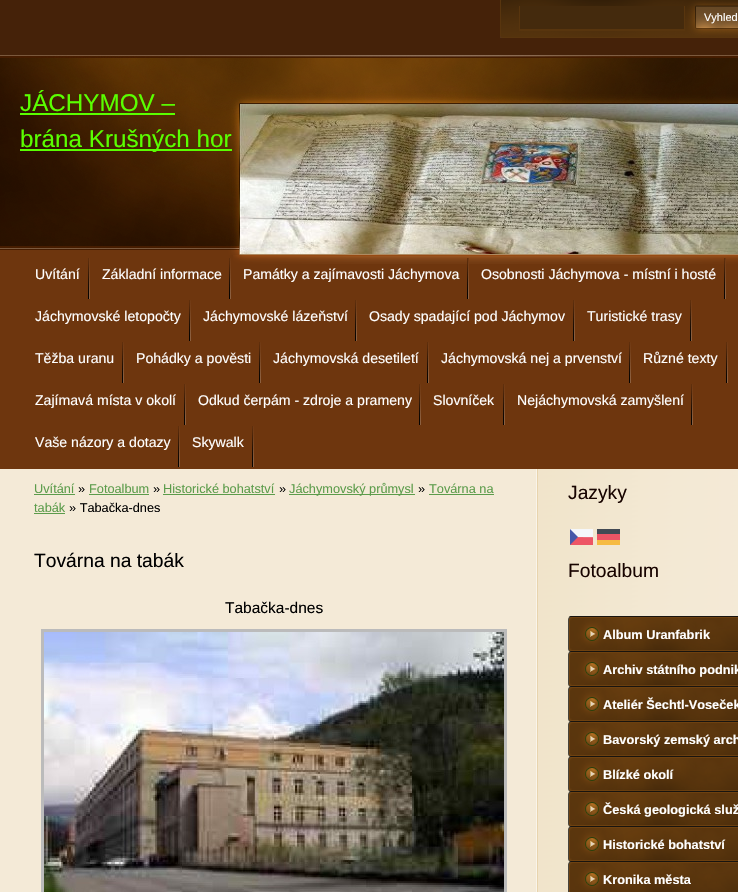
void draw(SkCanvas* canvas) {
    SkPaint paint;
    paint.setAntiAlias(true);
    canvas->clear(0xFFFFFFFF);
    canvas->drawImageRect(SkImages::DeferredFromEncodedData(SkData::MakeFromFileName("img1.png")), SkRect::MakeXYWH(0, 469, 738, 423), SkSamplingOptions());
    paint.setColor(0xFF452209);
    canvas->drawRect(SkRect::MakeXYWH(0, 0, 738, 55), paint);
    canvas->drawImageRect(SkImages::DeferredFromEncodedData(SkData::MakeFromFileName("img2.png")), SkRect::MakeXYWH(500, 0, 238, 38), SkSamplingOptions());
    paint.setColor(0xFF442A0D);
    canvas->drawRect(SkRect::MakeXYWH(520, 6, 164, 23), paint);
    SkFont font1(fontMgr->matchFamilyStyle("Liberation Sans", SkFontStyle::Normal()), 11);
    font1.setSubpixel(true);
    paint.setColor(0xFFFFFFFF);
    canvas->drawString("Vyhled", 704, 21, font1, paint);
    SkFont font2(fontMgr->matchFamilyStyle("Liberation Sans", SkFontStyle::Normal()), 19.25f);
    font2.setSubpixel(true);
    paint.setColor(0xFF180400);
    canvas->drawString("Jazyky", 568, 499, font2, paint);
    canvas->drawImageRect(SkImages::DeferredFromEncodedData(SkData::MakeFromFileName("img3.png")), SkRect::MakeXYWH(570, 529, 23, 16), SkSamplingOptions());
    canvas->drawImageRect(SkImages::DeferredFromEncodedData(SkData::MakeFromFileName("img4.png")), SkRect::MakeXYWH(597, 529, 23, 16), SkSamplingOptions());
    canvas->drawString("Fotoalbum", 568, 577, font2, paint);
    canvas->drawImageRect(SkImages::DeferredFromEncodedData(SkData::MakeFromFileName("img5.png")), SkRect::MakeXYWH(568, 616, 170, 35), SkSamplingOptions());
    SkFont font3(fontMgr->matchFamilyStyle("Liberation Sans", SkFontStyle::Bold()), 12.75f);
    font3.setSubpixel(true);
    paint.setColor(0xFFFFFFFF);
    canvas->drawString("Album Uranfabrik", 603, 639, font3, paint);
    canvas->drawImageRect(SkImages::DeferredFromEncodedData(SkData::MakeFromFileName("img5.png")), SkRect::MakeXYWH(568, 651, 170, 35), SkSamplingOptions());
    canvas->drawString("Archiv státního podnik", 603, 674, font3, paint);
    canvas->drawImageRect(SkImages::DeferredFromEncodedData(SkData::MakeFromFileName("img5.png")), SkRect::MakeXYWH(568, 686, 170, 35), SkSamplingOptions());
    canvas->drawString("Ateliér Šechtl-Voseček", 603, 709, font3, paint);
    canvas->drawImageRect(SkImages::DeferredFromEncodedData(SkData::MakeFromFileName("img5.png")), SkRect::MakeXYWH(568, 721, 170, 35), SkSamplingOptions());
    canvas->drawString("Bavorský zemský arch", 603, 744, font3, paint);
    canvas->drawImageRect(SkImages::DeferredFromEncodedData(SkData::MakeFromFileName("img5.png")), SkRect::MakeXYWH(568, 756, 170, 35), SkSamplingOptions());
    canvas->drawString("Blízké okolí", 603, 779, font3, paint);
    canvas->drawImageRect(SkImages::DeferredFromEncodedData(SkData::MakeFromFileName("img5.png")), SkRect::MakeXYWH(568, 791, 170, 35), SkSamplingOptions());
    canvas->drawString("Česká geologická služ", 603, 814, font3, paint);
    canvas->drawImageRect(SkImages::DeferredFromEncodedData(SkData::MakeFromFileName("img5.png")), SkRect::MakeXYWH(568, 826, 170, 35), SkSamplingOptions());
    canvas->drawString("Historické bohatství", 603, 849, font3, paint);
    canvas->drawImageRect(SkImages::DeferredFromEncodedData(SkData::MakeFromFileName("img6.png")), SkRect::MakeXYWH(568, 861, 170, 31), SkSamplingOptions());
    canvas->drawString("Kronika města", 603, 884, font3, paint);
    paint.setColor(0xFF6E360E);
    canvas->drawRect(SkRect::MakeXYWH(0, 255, 738, 214), paint);
    canvas->drawImageRect(SkImages::DeferredFromEncodedData(SkData::MakeFromFileName("img7.png")), SkRect::MakeXYWH(233, 255, 505, 9), SkSamplingOptions());
    canvas->drawImageRect(SkImages::DeferredFromEncodedData(SkData::MakeFromFileName("img8.png")), SkRect::MakeXYWH(88, 258, 2, 41), SkSamplingOptions());
    SkFont font4(fontMgr->matchFamilyStyle("Liberation Sans", SkFontStyle::Normal()), 14.1f);
    font4.setSubpixel(true);
    paint.setColor(0xFFFFFFFF);
    canvas->drawString("Uvítání", 35, 279, font4, paint);
    canvas->drawImageRect(SkImages::DeferredFromEncodedData(SkData::MakeFromFileName("img8.png")), SkRect::MakeXYWH(229, 258, 2, 41), SkSamplingOptions());
    canvas->drawString("Základní informace", 102, 279, font4, paint);
    canvas->drawImageRect(SkImages::DeferredFromEncodedData(SkData::MakeFromFileName("img8.png")), SkRect::MakeXYWH(467, 258, 2, 41), SkSamplingOptions());
    canvas->drawString("Památky a zajímavosti Jáchymova", 243, 279, font4, paint);
    canvas->drawImageRect(SkImages::DeferredFromEncodedData(SkData::MakeFromFileName("img8.png")), SkRect::MakeXYWH(724, 258, 2, 41), SkSamplingOptions());
    canvas->drawString("Osobnosti Jáchymova - místní i hosté", 481, 279, font4, paint);
    canvas->drawImageRect(SkImages::DeferredFromEncodedData(SkData::MakeFromFileName("img8.png")), SkRect::MakeXYWH(189, 300, 2, 41), SkSamplingOptions());
    canvas->drawString("Jáchymovské letopočty", 35, 321, font4, paint);
    canvas->drawImageRect(SkImages::DeferredFromEncodedData(SkData::MakeFromFileName("img8.png")), SkRect::MakeXYWH(355, 300, 2, 41), SkSamplingOptions());
    canvas->drawString("Jáchymovské lázeňství", 203, 321, font4, paint);
    canvas->drawImageRect(SkImages::DeferredFromEncodedData(SkData::MakeFromFileName("img8.png")), SkRect::MakeXYWH(573, 300, 2, 41), SkSamplingOptions());
    canvas->drawString("Osady spadající pod Jáchymov", 369, 321, font4, paint);
    canvas->drawImageRect(SkImages::DeferredFromEncodedData(SkData::MakeFromFileName("img8.png")), SkRect::MakeXYWH(690, 300, 2, 41), SkSamplingOptions());
    canvas->drawString("Turistické trasy", 587, 321, font4, paint);
    canvas->drawImageRect(SkImages::DeferredFromEncodedData(SkData::MakeFromFileName("img8.png")), SkRect::MakeXYWH(122, 342, 2, 41), SkSamplingOptions());
    canvas->drawString("Těžba uranu", 35, 363, font4, paint);
    canvas->drawImageRect(SkImages::DeferredFromEncodedData(SkData::MakeFromFileName("img8.png")), SkRect::MakeXYWH(259, 342, 2, 41), SkSamplingOptions());
    canvas->drawString("Pohádky a pověsti", 136, 363, font4, paint);
    canvas->drawImageRect(SkImages::DeferredFromEncodedData(SkData::MakeFromFileName("img8.png")), SkRect::MakeXYWH(427, 342, 2, 41), SkSamplingOptions());
    canvas->drawString("Jáchymovská desetiletí", 273, 363, font4, paint);
    canvas->drawImageRect(SkImages::DeferredFromEncodedData(SkData::MakeFromFileName("img8.png")), SkRect::MakeXYWH(629, 342, 2, 41), SkSamplingOptions());
    canvas->drawString("Jáchymovská nej a prvenství", 441, 363, font4, paint);
    canvas->drawImageRect(SkImages::DeferredFromEncodedData(SkData::MakeFromFileName("img8.png")), SkRect::MakeXYWH(726, 342, 2, 41), SkSamplingOptions());
    canvas->drawString("Různé texty", 643, 363, font4, paint);
    canvas->drawImageRect(SkImages::DeferredFromEncodedData(SkData::MakeFromFileName("img8.png")), SkRect::MakeXYWH(184, 384, 2, 41), SkSamplingOptions());
    canvas->drawString("Zajímavá místa v okolí", 35, 405, font4, paint);
    canvas->drawImageRect(SkImages::DeferredFromEncodedData(SkData::MakeFromFileName("img8.png")), SkRect::MakeXYWH(419, 384, 2, 41), SkSamplingOptions());
    canvas->drawString("Odkud čerpám - zdroje a prameny", 198, 405, font4, paint);
    canvas->drawImageRect(SkImages::DeferredFromEncodedData(SkData::MakeFromFileName("img8.png")), SkRect::MakeXYWH(503, 384, 2, 41), SkSamplingOptions());
    canvas->drawString("Slovníček", 433, 405, font4, paint);
    canvas->drawImageRect(SkImages::DeferredFromEncodedData(SkData::MakeFromFileName("img8.png")), SkRect::MakeXYWH(691, 384, 2, 41), SkSamplingOptions());
    canvas->drawString("Nejáchymovská zamyšlení", 517, 405, font4, paint);
    canvas->drawImageRect(SkImages::DeferredFromEncodedData(SkData::MakeFromFileName("img8.png")), SkRect::MakeXYWH(178, 426, 2, 41), SkSamplingOptions());
    canvas->drawString("Vaše názory a dotazy", 35, 447, font4, paint);
    canvas->drawImageRect(SkImages::DeferredFromEncodedData(SkData::MakeFromFileName("img8.png")), SkRect::MakeXYWH(252, 426, 2, 41), SkSamplingOptions());
    canvas->drawString("Skywalk", 192, 447, font4, paint);
    SkFont font5(fontMgr->matchFamilyStyle("Liberation Sans", SkFontStyle::Normal()), 12.75f);
    font5.setSubpixel(true);
    paint.setColor(0xFF5C9C4B);
    canvas->drawString("Uvítání", 34, 493, font5, paint);
    canvas->drawRect(SkRect::MakeXYWH(34, 494, 41, 1), paint);
    paint.setColor(0xFF000000);
    canvas->drawString("»", 78, 493, font5, paint);
    paint.setColor(0xFF5C9C4B);
    canvas->drawString("Fotoalbum", 89, 493, font5, paint);
    canvas->drawRect(SkRect::MakeXYWH(89, 494, 60, 1), paint);
    paint.setColor(0xFF000000);
    canvas->drawString("»", 153, 493, font5, paint);
    paint.setColor(0xFF5C9C4B);
    canvas->drawString("Historické bohatství", 163, 493, font5, paint);
    canvas->drawRect(SkRect::MakeXYWH(163, 494, 112, 1), paint);
    paint.setColor(0xFF000000);
    canvas->drawString("»", 279, 493, font5, paint);
    paint.setColor(0xFF5C9C4B);
    canvas->drawRect(SkRect::MakeXYWH(289, 494, 126, 1), paint);
    canvas->drawString("Jáchymovský průmysl", 289, 493, font5, paint);
    paint.setColor(0xFF000000);
    canvas->drawString("»", 418, 493, font5, paint);
    paint.setColor(0xFF5C9C4B);
    canvas->drawString("Továrna na", 429, 493, font5, paint);
    canvas->drawRect(SkRect::MakeXYWH(429, 494, 65, 1), paint);
    canvas->drawString("tabák", 34, 512, font5, paint);
    canvas->drawRect(SkRect::MakeXYWH(34, 513, 31, 1), paint);
    paint.setColor(0xFF000000);
    canvas->drawString("» Tabačka-dnes", 69, 512, font5, paint);
    canvas->drawString("Továrna na tabák", 34, 567, font2, paint);
    SkFont font6(fontMgr->matchFamilyStyle("Liberation Sans", SkFontStyle::Normal()), 15.5f);
    font6.setSubpixel(true);
    canvas->drawString("Tabačka-dnes", 225, 613, font6, paint);
    paint.setStyle(SkPaint::kStroke_Style);
    paint.setStrokeWidth(3);
    paint.setColor(0xFFBBBBBB);
    canvas->drawRect(SkRect::MakeXYWH(42.5f, 630.5f, 463, 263), paint);
    canvas->drawImageRect(SkImages::DeferredFromEncodedData(SkData::MakeFromFileName("img9.png")), SkRect::MakeXYWH(44, 632, 460, 260), SkSamplingOptions());
    canvas->drawImageRect(SkImages::DeferredFromEncodedData(SkData::MakeFromFileName("img10.png")), SkRect::MakeXYWH(0, 55, 738, 200), SkSamplingOptions());
    SkFont font7(fontMgr->matchFamilyStyle("Liberation Sans", SkFontStyle::Normal()), 24.25f);
    font7.setSubpixel(true);
    paint.setStyle(SkPaint::kFill_Style);
    paint.setColor(0xFF5AFF00);
    canvas->drawString("JÁCHYMOV –", 20, 111, font7, paint);
    canvas->drawRect(SkRect::MakeXYWH(20, 113, 155, 2), paint);
    canvas->drawRect(SkRect::MakeXYWH(20, 149, 212, 2), paint);
    canvas->drawString("brána Krušných hor", 20, 147, font7, paint);
    canvas->drawImageRect(SkImages::DeferredFromEncodedData(SkData::MakeFromFileName("img11.png")), SkRect::MakeXYWH(240, 104, 498, 150), SkSamplingOptions());
}
